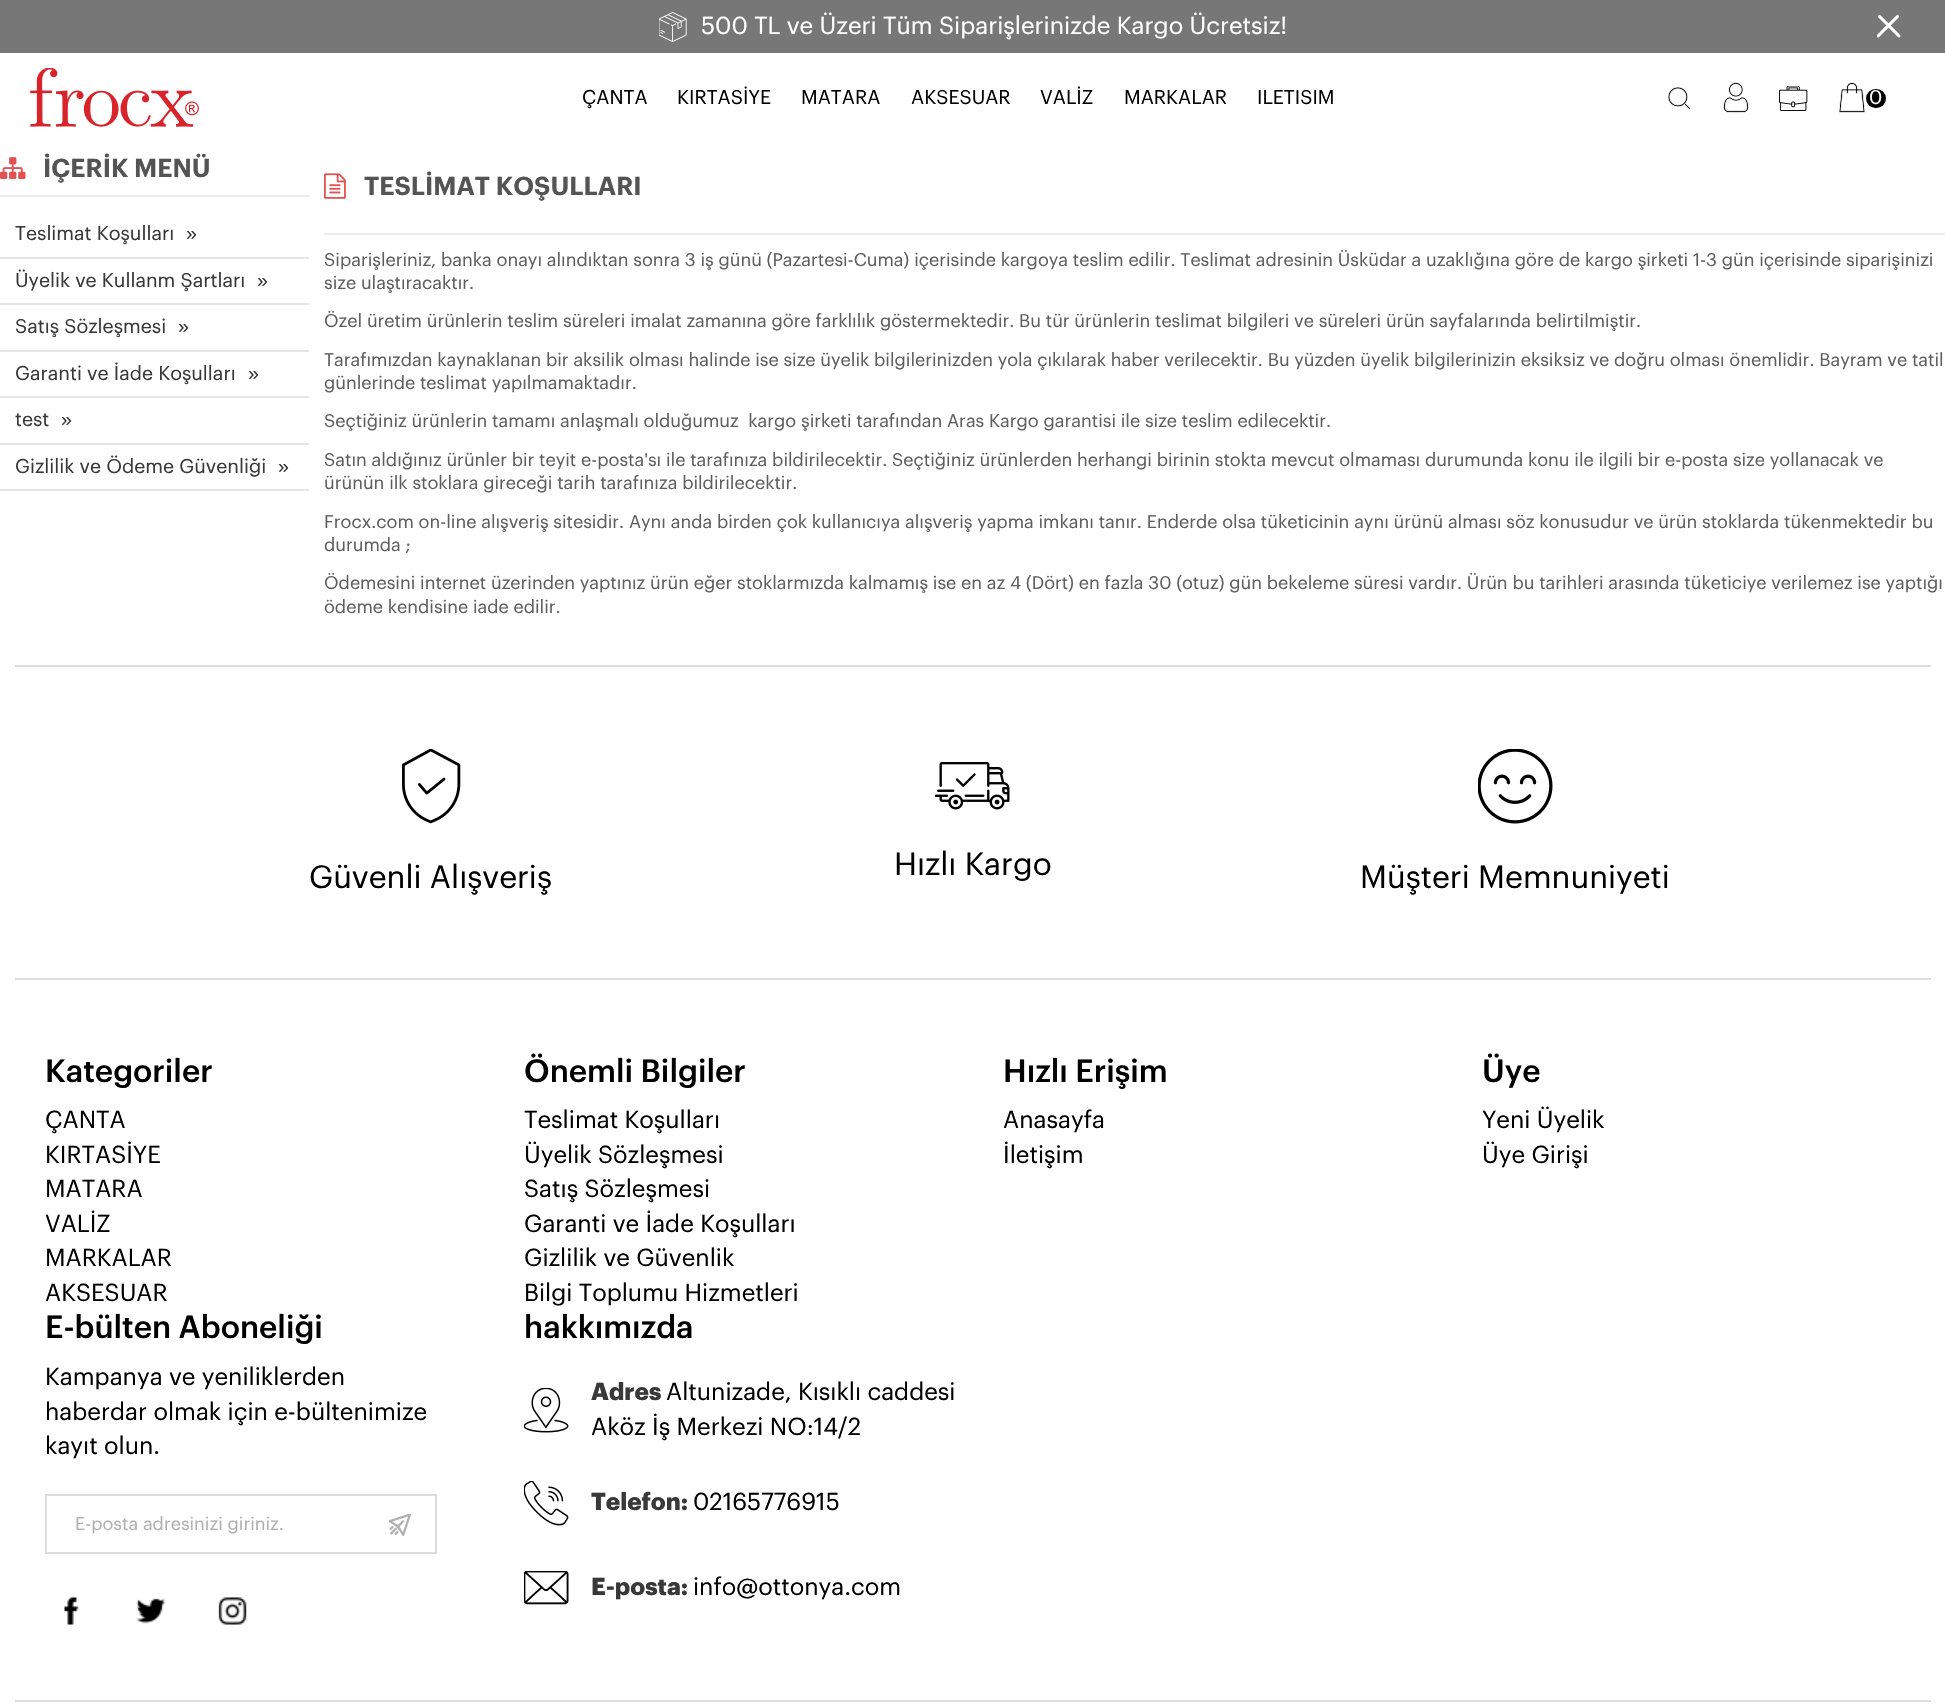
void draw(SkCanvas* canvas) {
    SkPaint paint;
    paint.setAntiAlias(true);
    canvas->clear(0xFFFFFFFF);
    paint.setColor(0xFF777777);
    canvas->drawRect(SkRect::MakeXYWH(0, 0, 1945, 53), paint);
    canvas->drawImageRect(SkImages::DeferredFromEncodedData(SkData::MakeFromFileName("img1.png")), SkRect::MakeXYWH(659, 12, 28, 30), SkSamplingOptions());
    SkFont font1(fontMgr->matchFamilyStyle("Graphik", SkFontStyle::Normal()), 24);
    font1.setSubpixel(true);
    paint.setColor(0xFFFFFFFF);
    canvas->drawString("500 TL ve Üzeri Tüm Siparişlerinizde Kargo Ücretsiz!", 701, 34, font1, paint);
    canvas->drawImageRect(SkImages::DeferredFromEncodedData(SkData::MakeFromFileName("img2.png")), SkRect::MakeXYWH(1877, 15, 24, 23), SkSamplingOptions());
    canvas->drawImageRect(SkImages::DeferredFromEncodedData(SkData::MakeFromFileName("img3.png")), SkRect::MakeXYWH(30, 68, 169, 59), SkSamplingOptions());
    SkFont font2(fontMgr->matchFamilyStyle("Graphik", SkFontStyle::Normal()), 19.5f);
    font2.setSubpixel(true);
    paint.setColor(0xFF000000);
    canvas->drawString("ÇANTA", 582, 104, font2, paint);
    canvas->drawString("KIRTASİYE", 677, 104, font2, paint);
    canvas->drawString("MATARA", 801, 104, font2, paint);
    canvas->drawString("AKSESUAR", 911, 104, font2, paint);
    canvas->drawString("VALİZ", 1040, 104, font2, paint);
    canvas->drawString("MARKALAR", 1124, 104, font2, paint);
    canvas->drawString("ILETISIM", 1257, 104, font2, paint);
    canvas->drawImageRect(SkImages::DeferredFromEncodedData(SkData::MakeFromFileName("img4.png")), SkRect::MakeXYWH(1668, 87, 23, 23), SkSamplingOptions());
    canvas->drawImageRect(SkImages::DeferredFromEncodedData(SkData::MakeFromFileName("img5.png")), SkRect::MakeXYWH(1723, 82, 26, 31), SkSamplingOptions());
    canvas->drawImageRect(SkImages::DeferredFromEncodedData(SkData::MakeFromFileName("img6.png")), SkRect::MakeXYWH(1779, 86, 29, 25), SkSamplingOptions());
    canvas->drawImageRect(SkImages::DeferredFromEncodedData(SkData::MakeFromFileName("img7.png")), SkRect::MakeXYWH(1839, 82, 26, 31), SkSamplingOptions());
    canvas->drawRoundRect(SkRect::MakeXYWH(1866, 89, 20, 19), 9.5f, 9.5f, paint);
    paint.setColor(0xFFFFFFFF);
    canvas->drawString("0", 1869, 104, font2, paint);
    paint.setColor(0xFFECECEC);
    canvas->drawRect(SkRect::MakeXYWH(0, 195, 309, 2), paint);
    canvas->drawImageRect(SkImages::DeferredFromEncodedData(SkData::MakeFromFileName("img8.png")), SkRect::MakeXYWH(0, 157, 26, 22), SkSamplingOptions());
    SkFont font3(fontMgr->matchFamilyStyle("Graphik", SkFontStyle(600, SkFontStyle::kNormal_Width, SkFontStyle::kUpright_Slant)), 25.5f);
    font3.setSubpixel(true);
    paint.setColor(0xFF545454);
    canvas->drawString("İÇERİK MENÜ", 43, 177, font3, paint);
    paint.setColor(0xFFE5E5E5);
    canvas->drawRect(SkRect::MakeXYWH(0, 257, 309, 2), paint);
    paint.setColor(0xFF393939);
    canvas->drawString("Teslimat Koşulları", 15, 240, font2, paint);
    SkFont font4(fontMgr->matchFamilyStyle("Liberation Sans", SkFontStyle::Normal()), 19.5f);
    font4.setSubpixel(true);
    canvas->drawString("»", 186, 240, font4, paint);
    paint.setColor(0xFFE5E5E5);
    canvas->drawRect(SkRect::MakeXYWH(0, 303, 309, 2), paint);
    paint.setColor(0xFF393939);
    canvas->drawString("Üyelik ve Kullanm Şartları", 15, 287, font2, paint);
    canvas->drawString("»", 257, 287, font4, paint);
    paint.setColor(0xFFE5E5E5);
    canvas->drawRect(SkRect::MakeXYWH(0, 350, 309, 2), paint);
    paint.setColor(0xFF393939);
    canvas->drawString("Satış Sözleşmesi", 15, 333, font2, paint);
    canvas->drawString("»", 178, 333, font4, paint);
    paint.setColor(0xFFE5E5E5);
    canvas->drawRect(SkRect::MakeXYWH(0, 396, 309, 2), paint);
    paint.setColor(0xFF393939);
    canvas->drawString("Garanti ve İade Koşulları", 15, 380, font2, paint);
    canvas->drawString("»", 248, 380, font4, paint);
    paint.setColor(0xFFE5E5E5);
    canvas->drawRect(SkRect::MakeXYWH(0, 443, 309, 2), paint);
    paint.setColor(0xFF393939);
    canvas->drawString("test", 15, 426, font2, paint);
    canvas->drawString("»", 61, 426, font4, paint);
    paint.setColor(0xFFE5E5E5);
    canvas->drawRect(SkRect::MakeXYWH(0, 489, 309, 2), paint);
    paint.setColor(0xFF393939);
    canvas->drawString("Gizlilik ve Ödeme Güvenliği", 15, 473, font2, paint);
    canvas->drawString("»", 278, 473, font4, paint);
    paint.setColor(0xFFECECEC);
    canvas->drawRect(SkRect::MakeXYWH(324, 233, 1621, 2), paint);
    canvas->drawImageRect(SkImages::DeferredFromEncodedData(SkData::MakeFromFileName("img9.png")), SkRect::MakeXYWH(324, 173, 22, 26), SkSamplingOptions());
    paint.setColor(0xFF545454);
    canvas->drawString("TESLİMAT KOŞULLARI", 364, 195, font3, paint);
    SkFont font5(fontMgr->matchFamilyStyle("Graphik", SkFontStyle::Normal()), 18);
    font5.setSubpixel(true);
    paint.setColor(0xFF5E5E5E);
    canvas->drawString("Siparişleriniz, banka onayı alındıktan sonra 3 iş günü (Pazartesi-Cuma) içerisinde kargoya teslim edilir. Teslimat adresinin Üsküdar a uzaklığına göre de kargo şirketi 1-3 gün içerisinde siparişinizi", 324, 266, font5, paint);
    canvas->drawString("size ulaştıracaktır.", 324, 289, font5, paint);
    canvas->drawString("Özel üretim ürünlerin teslim süreleri imalat zamanına göre farklılık göstermektedir. Bu tür ürünlerin teslimat bilgileri ve süreleri ürün sayfalarında belirtilmiştir.", 324, 327, font5, paint);
    canvas->drawString("Tarafımızdan kaynaklanan bir aksilik olması halinde ise size üyelik bilgilerinizden yola çıkılarak haber verilecektir. Bu yüzden üyelik bilgilerinizin eksiksiz ve doğru olması önemlidir. Bayram ve tatil", 324, 366, font5, paint);
    canvas->drawString("günlerinde teslimat yapılmamaktadır.", 324, 389, font5, paint);
    canvas->drawString("Seçtiğiniz ürünlerin tamamı anlaşmalı olduğumuz  kargo şirketi tarafından Aras Kargo garantisi ile size teslim edilecektir.", 324, 427, font5, paint);
    canvas->drawString("Satın aldığınız ürünler bir teyit e-posta'sı ile tarafınıza bildirilecektir. Seçtiğiniz ürünlerden herhangi birinin stokta mevcut olmaması durumunda konu ile ilgili bir e-posta size yollanacak ve", 324, 466, font5, paint);
    canvas->drawString("ürünün ilk stoklara gireceği tarih tarafınıza bildirilecektir.", 324, 489, font5, paint);
    canvas->drawString("Frocx.com on-line alışveriş sitesidir. Aynı anda birden çok kullanıcıya alışveriş yapma imkanı tanır. Enderde olsa tüketicinin aynı ürünü alması söz konusudur ve ürün stoklarda tükenmektedir bu", 324, 528, font5, paint);
    canvas->drawString("durumda ;", 324, 551, font5, paint);
    canvas->drawString("Ödemesini internet üzerinden yaptınız ürün eğer stoklarmızda kalmamış ise en az 4 (Dört) en fazla 30 (otuz) gün bekeleme süresi vardır. Ürün bu tarihleri arasında tüketiciye verilemez ise yaptığı", 324, 589, font5, paint);
    canvas->drawString("ödeme kendisine iade edilir.", 324, 613, font5, paint);
    paint.setColor(0xFFDDDDDD);
    canvas->drawRect(SkRect::MakeXYWH(15, 665, 1916, 2), paint);
    canvas->drawRect(SkRect::MakeXYWH(15, 978, 1916, 2), paint);
    canvas->drawImageRect(SkImages::DeferredFromEncodedData(SkData::MakeFromFileName("img10.png")), SkRect::MakeXYWH(402, 749, 59, 75), SkSamplingOptions());
    SkFont font6(fontMgr->matchFamilyStyle("Graphik", SkFontStyle::Normal()), 31.5f);
    font6.setSubpixel(true);
    paint.setColor(0xFF000000);
    canvas->drawString("Güvenli Alışveriş", 309, 888, font6, paint);
    canvas->drawImageRect(SkImages::DeferredFromEncodedData(SkData::MakeFromFileName("img11.png")), SkRect::MakeXYWH(935, 762, 75, 48), SkSamplingOptions());
    canvas->drawString("Hızlı Kargo", 894, 875, font6, paint);
    canvas->drawImageRect(SkImages::DeferredFromEncodedData(SkData::MakeFromFileName("img12.png")), SkRect::MakeXYWH(1478, 749, 75, 75), SkSamplingOptions());
    canvas->drawString("Müşteri Memnuniyeti", 1360, 888, font6, paint);
    paint.setColor(0xFFDDDDDD);
    canvas->drawRect(SkRect::MakeXYWH(15, 1700, 1916, 2), paint);
    SkFont font7(fontMgr->matchFamilyStyle("Graphik", SkFontStyle(500, SkFontStyle::kNormal_Width, SkFontStyle::kUpright_Slant)), 31.5f);
    font7.setSubpixel(true);
    paint.setColor(0xFF000000);
    canvas->drawString("Kategoriler", 45, 1082, font7, paint);
    canvas->drawString("ÇANTA", 45, 1128, font1, paint);
    canvas->drawString("KIRTASİYE", 45, 1163, font1, paint);
    canvas->drawString("MATARA", 45, 1197, font1, paint);
    canvas->drawString("VALİZ", 45, 1232, font1, paint);
    canvas->drawString("MARKALAR", 45, 1266, font1, paint);
    canvas->drawString("AKSESUAR", 45, 1301, font1, paint);
    canvas->drawString("Önemli Bilgiler", 524, 1082, font7, paint);
    canvas->drawString("Teslimat Koşulları", 524, 1128, font1, paint);
    canvas->drawString("Üyelik Sözleşmesi", 524, 1163, font1, paint);
    canvas->drawString("Satış Sözleşmesi", 524, 1197, font1, paint);
    canvas->drawString("Garanti ve İade Koşulları", 524, 1232, font1, paint);
    canvas->drawString("Gizlilik ve Güvenlik", 524, 1266, font1, paint);
    canvas->drawString("Bilgi Toplumu Hizmetleri", 524, 1301, font1, paint);
    canvas->drawString("Hızlı Erişim", 1003, 1082, font7, paint);
    canvas->drawString("Anasayfa", 1003, 1128, font1, paint);
    canvas->drawString("İletişim", 1003, 1163, font1, paint);
    canvas->drawString("Üye", 1482, 1082, font7, paint);
    canvas->drawString("Yeni Üyelik", 1482, 1128, font1, paint);
    canvas->drawString("Üye Girişi", 1482, 1163, font1, paint);
    canvas->drawString("E-bülten Aboneliği", 45, 1338, font7, paint);
    canvas->drawString("Kampanya ve yeniliklerden", 45, 1385, font1, paint);
    canvas->drawString("haberdar olmak için e-bültenimize", 45, 1420, font1, paint);
    canvas->drawString("kayıt olun.", 45, 1454, font1, paint);
    paint.setStyle(SkPaint::kStroke_Style);
    paint.setStrokeWidth(2);
    paint.setColor(0xFFDDDDDD);
    canvas->drawRect(SkRect::MakeXYWH(46, 1495, 390, 58), paint);
    paint.setStyle(SkPaint::kFill_Style);
    paint.setColor(0xFFB0B0B0);
    canvas->drawString("E-posta adresinizi giriniz.", 75, 1530, font5, paint);
    canvas->drawImageRect(SkImages::DeferredFromEncodedData(SkData::MakeFromFileName("img13.png")), SkRect::MakeXYWH(389, 1514, 22, 22), SkSamplingOptions());
    canvas->drawImageRect(SkImages::DeferredFromEncodedData(SkData::MakeFromFileName("img14.png")), SkRect::MakeXYWH(64, 1597, 15, 28), SkSamplingOptions());
    canvas->drawImageRect(SkImages::DeferredFromEncodedData(SkData::MakeFromFileName("img15.png")), SkRect::MakeXYWH(136, 1598, 30, 26), SkSamplingOptions());
    canvas->drawImageRect(SkImages::DeferredFromEncodedData(SkData::MakeFromFileName("img16.png")), SkRect::MakeXYWH(218, 1597, 29, 28), SkSamplingOptions());
    paint.setColor(0xFF000000);
    canvas->drawString("hakkımızda", 524, 1338, font7, paint);
    canvas->drawImageRect(SkImages::DeferredFromEncodedData(SkData::MakeFromFileName("img17.png")), SkRect::MakeXYWH(524, 1388, 45, 45), SkSamplingOptions());
    SkFont font8(fontMgr->matchFamilyStyle("Graphik", SkFontStyle::Bold()), 24);
    font8.setSubpixel(true);
    paint.setColor(0xFF393939);
    canvas->drawString("Adres", 591, 1400, font8, paint);
    paint.setColor(0xFF000000);
    canvas->drawString("Altunizade, Kısıklı caddesi", 666, 1400, font1, paint);
    canvas->drawString("Aköz İş Merkezi NO:14/2", 591, 1435, font1, paint);
    canvas->drawImageRect(SkImages::DeferredFromEncodedData(SkData::MakeFromFileName("img18.png")), SkRect::MakeXYWH(524, 1481, 45, 45), SkSamplingOptions());
    paint.setColor(0xFF393939);
    canvas->drawString("Telefon:", 591, 1510, font8, paint);
    paint.setColor(0xFF000000);
    canvas->drawString("02165776915", 693, 1510, font1, paint);
    canvas->drawImageRect(SkImages::DeferredFromEncodedData(SkData::MakeFromFileName("img19.png")), SkRect::MakeXYWH(524, 1571, 45, 34), SkSamplingOptions());
    paint.setColor(0xFF393939);
    canvas->drawString("E-posta:", 591, 1595, font8, paint);
    paint.setColor(0xFF000000);
    canvas->drawString("info@ottonya.com", 693, 1595, font1, paint);
}
